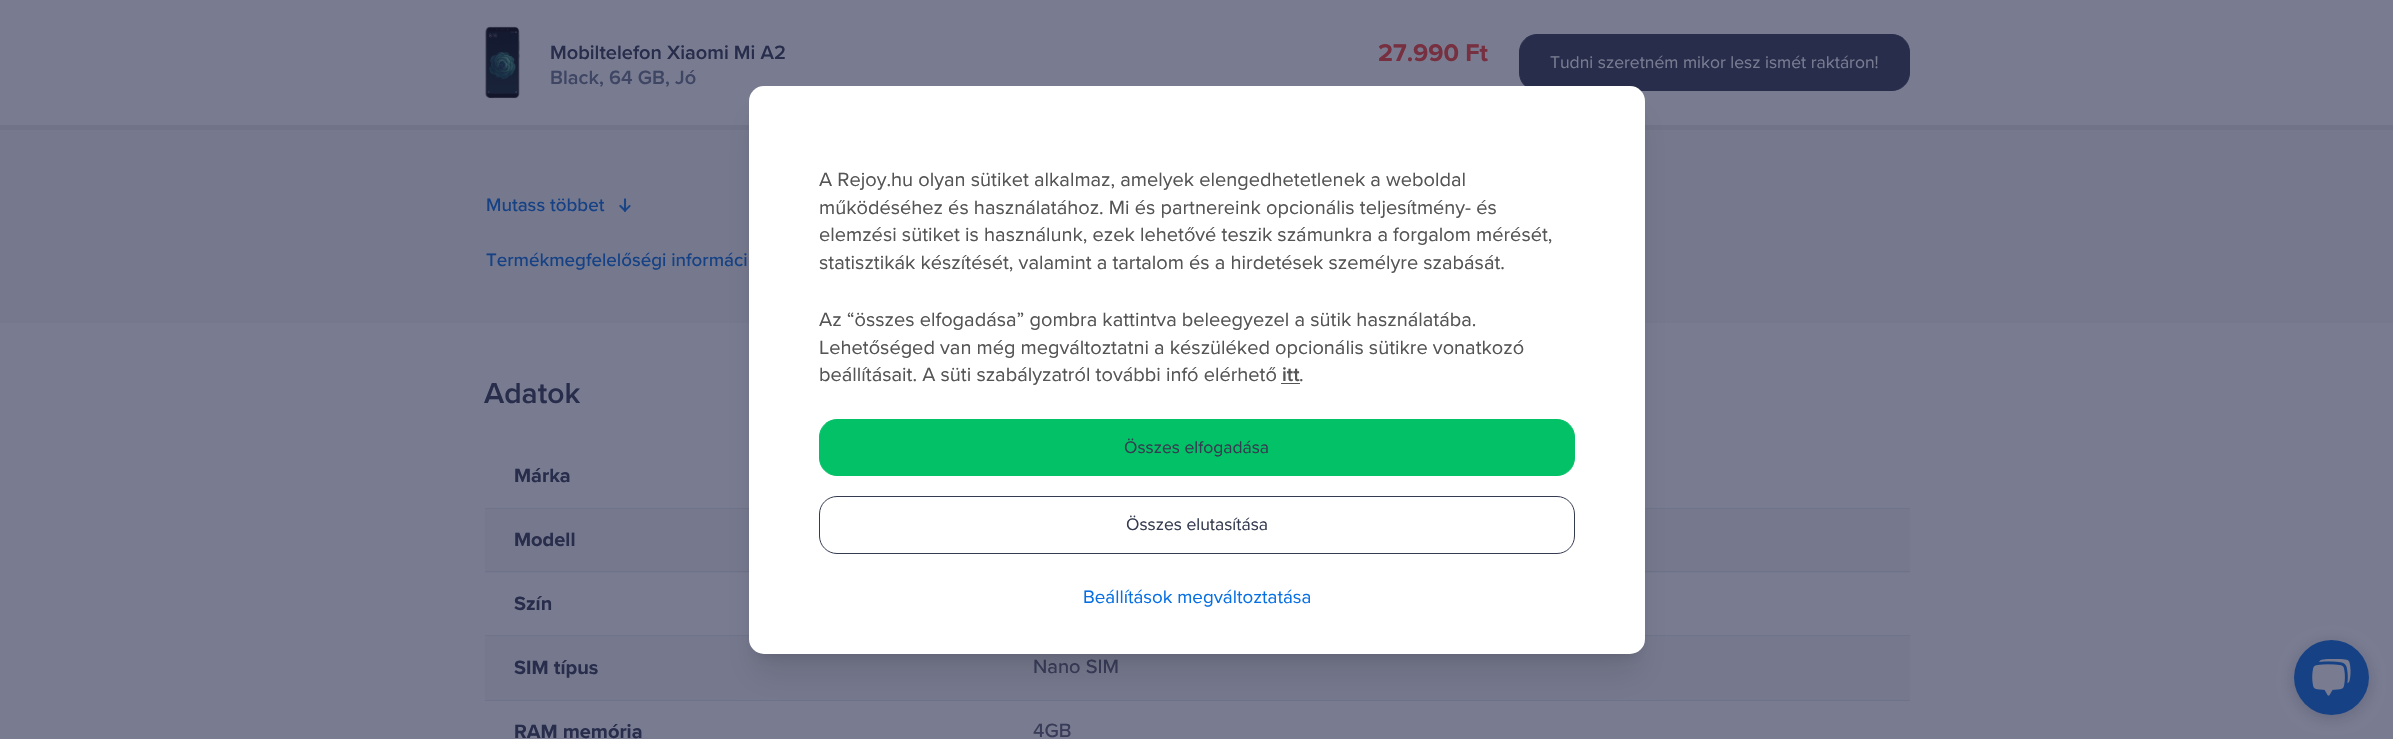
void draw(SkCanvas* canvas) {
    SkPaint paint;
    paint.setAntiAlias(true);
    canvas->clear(0xFF797C91);
    paint.setColor(0xFF717489);
    canvas->drawPath(SkPathBuilder(SkPathFillType::kEvenOdd).moveTo(-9, -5).lineTo(-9, 130).lineTo(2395, 130).lineTo(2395, -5).close().moveTo(0, 0).lineTo(0, 125).lineTo(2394, 125).lineTo(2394, 0).close().detach(), paint);
    canvas->drawImageRect(SkImages::DeferredFromEncodedData(SkData::MakeFromFileName("img1.png")), SkRect::MakeXYWH(485, 26, 35, 73), SkSamplingOptions());
    SkFont font1(fontMgr->matchFamilyStyle("Proxima Nova", SkFontStyle(600, SkFontStyle::kNormal_Width, SkFontStyle::kUpright_Slant)), 20);
    font1.setSubpixel(true);
    paint.setColor(0xFF282D4B);
    canvas->drawString("Mobiltelefon Xiaomi Mi A2", 550, 59, font1, paint);
    paint.setColor(0xFF3F4664);
    canvas->drawString("Black, 64 GB, Jó", 550, 84, font1, paint);
    SkFont font2(fontMgr->matchFamilyStyle("Proxima Nova", SkFontStyle::Bold()), 25);
    font2.setSubpixel(true);
    paint.setColor(0xFF763040);
    canvas->drawString("27.990 Ft", 1378, 61, font2, paint);
    paint.setColor(0xFF282D4B);
    canvas->drawRoundRect(SkRect::MakeXYWH(1519.5f, 34.5f, 390, 56), 17.5f, 17.5f, paint);
    paint.setStyle(SkPaint::kStroke_Style);
    paint.setStrokeWidth(1);
    canvas->drawRoundRect(SkRect::MakeXYWH(1519.5f, 34.5f, 390, 56), 17.5f, 17.5f, paint);
    SkFont font3(fontMgr->matchFamilyStyle("Proxima Nova", SkFontStyle::Normal()), 17.5f);
    font3.setSubpixel(true);
    paint.setStyle(SkPaint::kFill_Style);
    paint.setColor(0xFF797C91);
    canvas->drawString("Tudni szeretném mikor lesz ismét raktáron!", 1550, 68, font3, paint);
    paint.setColor(0xFF76798E);
    canvas->drawRect(SkRect::MakeXYWH(0, 166, 2393, 157), paint);
    {
        const SkColor colors[] = {0xFF76798E, 0x0076798E};
        const float stops[] = {0.5f, 1};
        const SkPoint ends[] = {{1197, 166}, {1197, 41}};
        paint.setShader(SkGradientShader::MakeLinear(ends, colors, stops, 2, SkTileMode::kClamp));
        paint.setAlpha(255);
    }
    canvas->drawRect(SkRect::MakeXYWH(0, 130, 2393, 36), paint);
    SkFont font4(fontMgr->matchFamilyStyle("Proxima Nova", SkFontStyle(500, SkFontStyle::kNormal_Width, SkFontStyle::kUpright_Slant)), 18.75f);
    font4.setSubpixel(true);
    paint.setShader(nullptr);
    paint.setColor(0xFF164285);
    canvas->drawString("Mutass többet", 486, 211, font4, paint);
    canvas->drawImageRect(SkImages::DeferredFromEncodedData(SkData::MakeFromFileName("img2.png")), SkRect::MakeXYWH(619, 198, 12, 14), SkSamplingOptions());
    canvas->drawString("Termékmegfelelőségi informáci", 486, 266, font4, paint);
    SkFont font5(fontMgr->matchFamilyStyle("Proxima Nova", SkFontStyle(600, SkFontStyle::kNormal_Width, SkFontStyle::kUpright_Slant)), 30);
    font5.setSubpixel(true);
    paint.setColor(0xFF282D4B);
    canvas->drawString("Adatok", 484, 403, font5, paint);
    paint.setColor(0xFF70748B);
    canvas->drawRect(SkRect::MakeXYWH(485, 508, 1425, 1), paint);
    SkFont font6(fontMgr->matchFamilyStyle("Proxima Nova", SkFontStyle::Bold()), 20);
    font6.setSubpixel(true);
    paint.setColor(0xFF282D4B);
    canvas->drawString("Márka", 514, 482, font6, paint);
    paint.setColor(0xFF76798E);
    canvas->drawRect(SkRect::MakeXYWH(485, 509, 1425, 64), paint);
    paint.setColor(0xFF6E728A);
    canvas->drawRect(SkRect::MakeXYWH(485, 571, 1425, 1), paint);
    paint.setColor(0xFF282D4B);
    canvas->drawString("Modell", 514, 546, font6, paint);
    paint.setColor(0xFF70748B);
    canvas->drawRect(SkRect::MakeXYWH(485, 635, 1425, 1), paint);
    paint.setColor(0xFF282D4B);
    canvas->drawString("Szín", 514, 610, font6, paint);
    paint.setColor(0xFF76798E);
    canvas->drawRect(SkRect::MakeXYWH(485, 636, 1425, 64), paint);
    paint.setColor(0xFF6E728A);
    canvas->drawRect(SkRect::MakeXYWH(485, 700, 1425, 1), paint);
    paint.setColor(0xFF282D4B);
    canvas->drawString("SIM típus", 514, 674, font6, paint);
    SkFont font7(fontMgr->matchFamilyStyle("Proxima Nova", SkFontStyle(500, SkFontStyle::kNormal_Width, SkFontStyle::kUpright_Slant)), 20);
    font7.setSubpixel(true);
    paint.setColor(0xFF383C58);
    canvas->drawString("Nano SIM", 1033, 673, font7, paint);
    paint.setColor(0xFF282D4B);
    canvas->drawString("RAM memória", 514, 738, font6, paint);
    paint.setColor(0xFF383C58);
    canvas->drawString("4GB", 1033, 737, font7, paint);
    paint.setColor(0x3313162B);
    paint.setMaskFilter(SkMaskFilter::MakeBlur(kNormal_SkBlurStyle, 7.5f));
    canvas->drawRoundRect(SkRect::MakeXYWH(2294, 643, 75, 75), 37.5f, 37.5f, paint);
    paint.setMaskFilter(nullptr);
    paint.setColor(0xFF164285);
    canvas->drawCircle(2331.5f, 677.5f, 37.5f, paint);
    canvas->drawImageRect(SkImages::DeferredFromEncodedData(SkData::MakeFromFileName("img3.png")), SkRect::MakeXYWH(2312, 659, 39, 37), SkSamplingOptions());
    paint.setColor(0x1A000000);
    paint.setMaskFilter(SkMaskFilter::MakeBlur(kNormal_SkBlurStyle, 6));
    canvas->drawRoundRect(SkRect::MakeXYWH(756, 104, 882, 552), 8, 8, paint);
    paint.setMaskFilter(nullptr);
    paint.setMaskFilter(SkMaskFilter::MakeBlur(kNormal_SkBlurStyle, 15.5f));
    canvas->drawRoundRect(SkRect::MakeXYWH(755, 118, 884, 555), 9, 9, paint);
    paint.setMaskFilter(nullptr);
    paint.setColor(0xFFFFFFFF);
    canvas->drawRoundRect(SkRect::MakeXYWH(749, 86, 896, 568), 15, 15, paint);
    SkFont font8(fontMgr->matchFamilyStyle("Proxima Nova", SkFontStyle::Normal()), 20);
    font8.setSubpixel(true);
    paint.setColor(0xFF555555);
    canvas->drawString("A Rejoy.hu olyan sütiket alkalmaz, amelyek elengedhetetlenek a weboldal", 819, 186, font8, paint);
    canvas->drawString("működéséhez és használatához. Mi és partnereink opcionális teljesítmény- és", 819, 214, font8, paint);
    canvas->drawString("elemzési sütiket is használunk, ezek lehetővé teszik számunkra a forgalom mérését,", 819, 241, font8, paint);
    canvas->drawString("statisztikák készítését, valamint a tartalom és a hirdetések személyre szabását.", 819, 269, font8, paint);
    canvas->drawString("Az “összes elfogadása” gombra kattintva beleegyezel a sütik használatába.", 819, 326, font8, paint);
    canvas->drawString("Lehetőséged van még megváltoztatni a készüléked opcionális sütikre vonatkozó", 819, 354, font8, paint);
    canvas->drawString("beállításait. A süti szabályzatról további infó elérhető", 819, 381, font8, paint);
    canvas->drawString("itt", 1282, 381, font1, paint);
    canvas->drawRect(SkRect::MakeXYWH(1281, 383, 19, 1), paint);
    canvas->drawString(".", 1299, 381, font8, paint);
    paint.setColor(0xFF03C166);
    canvas->drawRoundRect(SkRect::MakeXYWH(819.5f, 419.5f, 755, 56), 17.5f, 17.5f, paint);
    paint.setStyle(SkPaint::kStroke_Style);
    canvas->drawRoundRect(SkRect::MakeXYWH(819.5f, 419.5f, 755, 56), 17.5f, 17.5f, paint);
    paint.setStyle(SkPaint::kFill_Style);
    paint.setColor(0xFF353B50);
    canvas->drawString("Összes elfogadása", 1124, 453, font3, paint);
    paint.setStyle(SkPaint::kStroke_Style);
    canvas->drawRoundRect(SkRect::MakeXYWH(819.5f, 496.5f, 755, 57), 17.5f, 17.5f, paint);
    paint.setStyle(SkPaint::kFill_Style);
    canvas->drawString("Összes elutasítása", 1126, 530, font3, paint);
    SkFont font9(fontMgr->matchFamilyStyle("Proxima Nova", SkFontStyle::Normal()), 18.75f);
    font9.setSubpixel(true);
    paint.setColor(0xFF066FE3);
    canvas->drawString("Beállítások megváltoztatása", 1083, 603, font9, paint);
}
